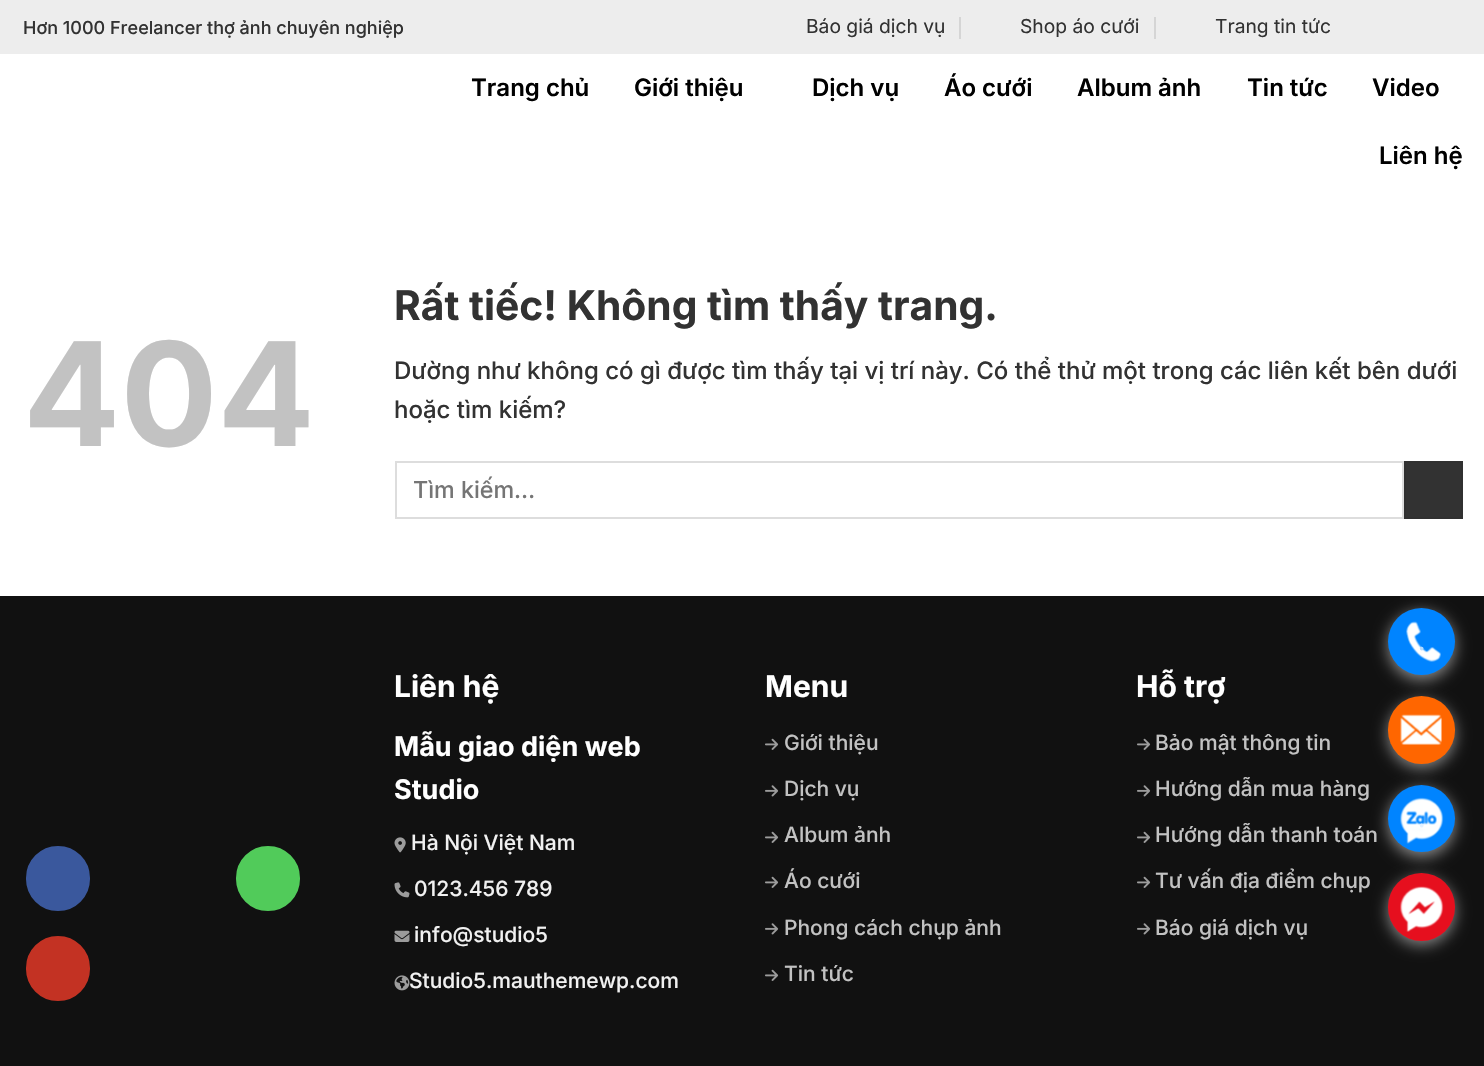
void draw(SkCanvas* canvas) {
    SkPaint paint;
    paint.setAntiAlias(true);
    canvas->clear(0xFFFFFFFF);
    paint.setColor(0xFFEDEDED);
    canvas->drawRect(SkRect::MakeXYWH(0, 0, 1484, 54), paint);
    SkFont font1(fontMgr->matchFamilyStyle("Inter", SkFontStyle(500, SkFontStyle::kNormal_Width, SkFontStyle::kUpright_Slant)), 18);
    font1.setSubpixel(true);
    paint.setColor(0xFF323232);
    canvas->drawString("Hơn 1000 Freelancer thợ ảnh chuyên nghiệp", 23, 34, font1, paint);
    SkFont font2(fontMgr->matchFamilyStyle("Inter", SkFontStyle::Normal()), 19.25f);
    font2.setSubpixel(true);
    canvas->drawString("Báo giá dịch vụ", 806, 33, font2, paint);
    paint.setColor(0xFFD5D5D5);
    canvas->drawRect(SkRect::MakeXYWH(959, 17, 2, 22), paint);
    paint.setColor(0xFF323232);
    canvas->drawString("Shop áo cưới", 1020, 33, font2, paint);
    paint.setColor(0xFFD5D5D5);
    canvas->drawRect(SkRect::MakeXYWH(1154, 17, 2, 22), paint);
    paint.setColor(0xFF323232);
    canvas->drawString("Trang tin tức", 1215, 33, font2, paint);
    SkFont font3(fontMgr->matchFamilyStyle("Inter", SkFontStyle(600, SkFontStyle::kNormal_Width, SkFontStyle::kUpright_Slant)), 24);
    font3.setSubpixel(true);
    paint.setColor(0xFF000000);
    canvas->drawString("Trang chủ", 471, 96, font3, paint);
    canvas->drawString("Giới thiệu", 634, 96, font3, paint);
    canvas->drawString("Dịch vụ", 812, 96, font3, paint);
    canvas->drawString("Áo cưới", 944, 96, font3, paint);
    canvas->drawString("Album ảnh", 1077, 96, font3, paint);
    canvas->drawString("Tin tức", 1247, 96, font3, paint);
    canvas->drawString("Video", 1372, 96, font3, paint);
    canvas->drawString("Liên hệ", 1379, 164, font3, paint);
    SkFont font4(fontMgr->matchFamilyStyle("Inter", SkFontStyle::Bold()), 144);
    font4.setSubpixel(true);
    paint.setColor(0xFFC2C2C2);
    canvas->drawString("404", 23, 446, font4, paint);
    SkFont font5(fontMgr->matchFamilyStyle("Inter", SkFontStyle::Bold()), 40.75f);
    font5.setSubpixel(true);
    paint.setColor(0xFF323232);
    canvas->drawString("Rất tiếc! Không tìm thấy trang.", 394, 320, font5, paint);
    SkFont font6(fontMgr->matchFamilyStyle("Inter", SkFontStyle(500, SkFontStyle::kNormal_Width, SkFontStyle::kUpright_Slant)), 24);
    font6.setSubpixel(true);
    canvas->drawString("Dường như không có gì được tìm thấy tại vị trí này. Có thể thử một trong các liên kết bên dưới", 394, 379, font6, paint);
    canvas->drawString("hoặc tìm kiếm?", 394, 418, font6, paint);
    paint.setStyle(SkPaint::kStroke_Style);
    paint.setStrokeWidth(2);
    paint.setColor(0xFFDDDDDD);
    canvas->drawRect(SkRect::MakeXYWH(396, 462, 1007, 56), paint);
    SkFont font7(fontMgr->matchFamilyStyle("Inter", SkFontStyle(500, SkFontStyle::kNormal_Width, SkFontStyle::kUpright_Slant)), 23.25f);
    font7.setSubpixel(true);
    paint.setStyle(SkPaint::kFill_Style);
    paint.setColor(0xFF757575);
    canvas->drawString("Tìm kiếm…", 413, 498, font7, paint);
    paint.setColor(0xFF323232);
    canvas->drawRect(SkRect::MakeXYWH(1405, 462, 57, 56), paint);
    paint.setStyle(SkPaint::kStroke_Style);
    paint.setColor(0xFF303030);
    canvas->drawRect(SkRect::MakeXYWH(1405, 462, 57, 56), paint);
    paint.setStyle(SkPaint::kFill_Style);
    paint.setColor(0xFF111111);
    canvas->drawRect(SkRect::MakeXYWH(0, 596, 1484, 470), paint);
    paint.setColor(0xFF3A589D);
    canvas->drawRoundRect(SkRect::MakeXYWH(27, 847, 62, 63), 31, 31, paint);
    paint.setStyle(SkPaint::kStroke_Style);
    canvas->drawRoundRect(SkRect::MakeXYWH(27, 847, 62, 63), 31, 31, paint);
    paint.setStyle(SkPaint::kFill_Style);
    paint.setColor(0xFF51CB5A);
    canvas->drawRoundRect(SkRect::MakeXYWH(237, 847, 62, 63), 31, 31, paint);
    paint.setStyle(SkPaint::kStroke_Style);
    canvas->drawRoundRect(SkRect::MakeXYWH(237, 847, 62, 63), 31, 31, paint);
    paint.setStyle(SkPaint::kFill_Style);
    paint.setColor(0xFFC33223);
    canvas->drawRoundRect(SkRect::MakeXYWH(27, 937, 62, 63), 31, 31, paint);
    paint.setStyle(SkPaint::kStroke_Style);
    canvas->drawRoundRect(SkRect::MakeXYWH(27, 937, 62, 63), 31, 31, paint);
    SkFont font8(fontMgr->matchFamilyStyle("Inter", SkFontStyle::Bold()), 30);
    font8.setSubpixel(true);
    paint.setStyle(SkPaint::kFill_Style);
    paint.setColor(0xFFFFFFFF);
    canvas->drawString("Liên hệ", 394, 697, font8, paint);
    SkFont font9(fontMgr->matchFamilyStyle("Inter", SkFontStyle::Bold()), 27);
    font9.setSubpixel(true);
    canvas->drawString("Mẫu giao diện web", 394, 756, font9, paint);
    canvas->drawString("Studio", 394, 799, font9, paint);
    canvas->drawImageRect(SkImages::DeferredFromEncodedData(SkData::MakeFromFileName("img1.png")), SkRect::MakeXYWH(394, 837, 12, 16), SkSamplingOptions());
    SkFont font10(fontMgr->matchFamilyStyle("Inter", SkFontStyle(500, SkFontStyle::kNormal_Width, SkFontStyle::kUpright_Slant)), 21);
    font10.setSubpixel(true);
    paint.setColor(0xFFF1F1F1);
    canvas->drawString("Hà Nội Việt Nam", 411, 850, font10, paint);
    canvas->drawImageRect(SkImages::DeferredFromEncodedData(SkData::MakeFromFileName("img2.png")), SkRect::MakeXYWH(394, 882, 16, 16), SkSamplingOptions());
    canvas->drawString("0123.456 789", 414, 896, font10, paint);
    canvas->drawImageRect(SkImages::DeferredFromEncodedData(SkData::MakeFromFileName("img3.png")), SkRect::MakeXYWH(394, 930, 16, 12), SkSamplingOptions());
    canvas->drawString("info@studio5", 414, 942, font10, paint);
    canvas->drawImageRect(SkImages::DeferredFromEncodedData(SkData::MakeFromFileName("img4.png")), SkRect::MakeXYWH(394, 975, 16, 16), SkSamplingOptions());
    canvas->drawString("Studio5.mauthemewp.com", 409, 988, font10, paint);
    paint.setColor(0xFFFFFFFF);
    canvas->drawString("Menu", 765, 697, font8, paint);
    canvas->drawImageRect(SkImages::DeferredFromEncodedData(SkData::MakeFromFileName("img5.png")), SkRect::MakeXYWH(765, 738, 14, 12), SkSamplingOptions());
    paint.setColor(0xFFC2C2C2);
    canvas->drawString("Giới thiệu", 784, 750, font10, paint);
    canvas->drawImageRect(SkImages::DeferredFromEncodedData(SkData::MakeFromFileName("img6.png")), SkRect::MakeXYWH(765, 785, 14, 12), SkSamplingOptions());
    canvas->drawString("Dịch vụ", 784, 796, font10, paint);
    canvas->drawImageRect(SkImages::DeferredFromEncodedData(SkData::MakeFromFileName("img5.png")), SkRect::MakeXYWH(765, 831, 14, 12), SkSamplingOptions());
    canvas->drawString("Album ảnh", 784, 842, font10, paint);
    canvas->drawImageRect(SkImages::DeferredFromEncodedData(SkData::MakeFromFileName("img5.png")), SkRect::MakeXYWH(765, 876, 14, 12), SkSamplingOptions());
    canvas->drawString("Áo cưới", 784, 888, font10, paint);
    canvas->drawImageRect(SkImages::DeferredFromEncodedData(SkData::MakeFromFileName("img6.png")), SkRect::MakeXYWH(765, 923, 14, 12), SkSamplingOptions());
    canvas->drawString("Phong cách chụp ảnh", 784, 935, font10, paint);
    canvas->drawImageRect(SkImages::DeferredFromEncodedData(SkData::MakeFromFileName("img5.png")), SkRect::MakeXYWH(765, 969, 14, 12), SkSamplingOptions());
    canvas->drawString("Tin tức", 784, 981, font10, paint);
    paint.setColor(0xFFFFFFFF);
    canvas->drawString("Hỗ trợ", 1136, 697, font8, paint);
    canvas->drawImageRect(SkImages::DeferredFromEncodedData(SkData::MakeFromFileName("img5.png")), SkRect::MakeXYWH(1137, 738, 14, 12), SkSamplingOptions());
    paint.setColor(0xFFC2C2C2);
    canvas->drawString("Bảo mật thông tin", 1155, 750, font10, paint);
    canvas->drawImageRect(SkImages::DeferredFromEncodedData(SkData::MakeFromFileName("img6.png")), SkRect::MakeXYWH(1137, 785, 14, 12), SkSamplingOptions());
    canvas->drawString("Hướng dẫn mua hàng", 1155, 796, font10, paint);
    canvas->drawImageRect(SkImages::DeferredFromEncodedData(SkData::MakeFromFileName("img5.png")), SkRect::MakeXYWH(1137, 831, 14, 12), SkSamplingOptions());
    canvas->drawString("Hướng dẫn thanh toán", 1155, 842, font10, paint);
    canvas->drawImageRect(SkImages::DeferredFromEncodedData(SkData::MakeFromFileName("img5.png")), SkRect::MakeXYWH(1137, 876, 14, 12), SkSamplingOptions());
    canvas->drawString("Tư vấn địa điểm chụp", 1155, 888, font10, paint);
    canvas->drawImageRect(SkImages::DeferredFromEncodedData(SkData::MakeFromFileName("img6.png")), SkRect::MakeXYWH(1137, 923, 14, 12), SkSamplingOptions());
    canvas->drawString("Báo giá dịch vụ", 1155, 935, font10, paint);
    paint.setColor(0xFF888888);
    paint.setMaskFilter(SkMaskFilter::MakeBlur(kNormal_SkBlurStyle, 7.5f));
    canvas->drawRoundRect(SkRect::MakeXYWH(1388, 612, 67, 68), 33.5f, 33.5f, paint);
    paint.setMaskFilter(nullptr);
    paint.setColor(0xFF0084FF);
    canvas->drawCircle(1421.5f, 641.5f, 33.5f, paint);
    canvas->drawImageRect(SkImages::DeferredFromEncodedData(SkData::MakeFromFileName("img7.png")), SkRect::MakeXYWH(1406, 621, 35, 41), SkSamplingOptions());
    paint.setColor(0xFFB5DBFF);
    canvas->drawString(".", 1418, 650, font6, paint);
    paint.setColor(0xFF888888);
    paint.setMaskFilter(SkMaskFilter::MakeBlur(kNormal_SkBlurStyle, 7.5f));
    canvas->drawRoundRect(SkRect::MakeXYWH(1388, 701, 67, 67), 33.5f, 33.5f, paint);
    paint.setMaskFilter(nullptr);
    paint.setColor(0xFFFF6600);
    canvas->drawRoundRect(SkRect::MakeXYWH(1388, 696, 67, 68), 33.5f, 33.5f, paint);
    canvas->drawImageRect(SkImages::DeferredFromEncodedData(SkData::MakeFromFileName("img8.png")), SkRect::MakeXYWH(1400, 714, 42, 31), SkSamplingOptions());
    paint.setColor(0xFF888888);
    paint.setMaskFilter(SkMaskFilter::MakeBlur(kNormal_SkBlurStyle, 7.5f));
    canvas->drawRoundRect(SkRect::MakeXYWH(1388, 789, 67, 68), 33.5f, 33.5f, paint);
    paint.setMaskFilter(nullptr);
    paint.setColor(0xFF0084FF);
    canvas->drawCircle(1421.5f, 818.5f, 33.5f, paint);
    canvas->drawImageRect(SkImages::DeferredFromEncodedData(SkData::MakeFromFileName("img9.png")), SkRect::MakeXYWH(1400, 797, 44, 47), SkSamplingOptions());
    paint.setColor(0xFFE3F1FF);
    canvas->drawString(".", 1418, 827, font6, paint);
    paint.setColor(0xFF888888);
    paint.setMaskFilter(SkMaskFilter::MakeBlur(kNormal_SkBlurStyle, 7.5f));
    canvas->drawRoundRect(SkRect::MakeXYWH(1388, 878, 67, 67), 33.5f, 33.5f, paint);
    paint.setMaskFilter(nullptr);
    paint.setColor(0xFFE60F1E);
    canvas->drawRoundRect(SkRect::MakeXYWH(1388, 873, 67, 68), 33.5f, 33.5f, paint);
    canvas->drawImageRect(SkImages::DeferredFromEncodedData(SkData::MakeFromFileName("img10.png")), SkRect::MakeXYWH(1400, 886, 44, 46), SkSamplingOptions());
}
